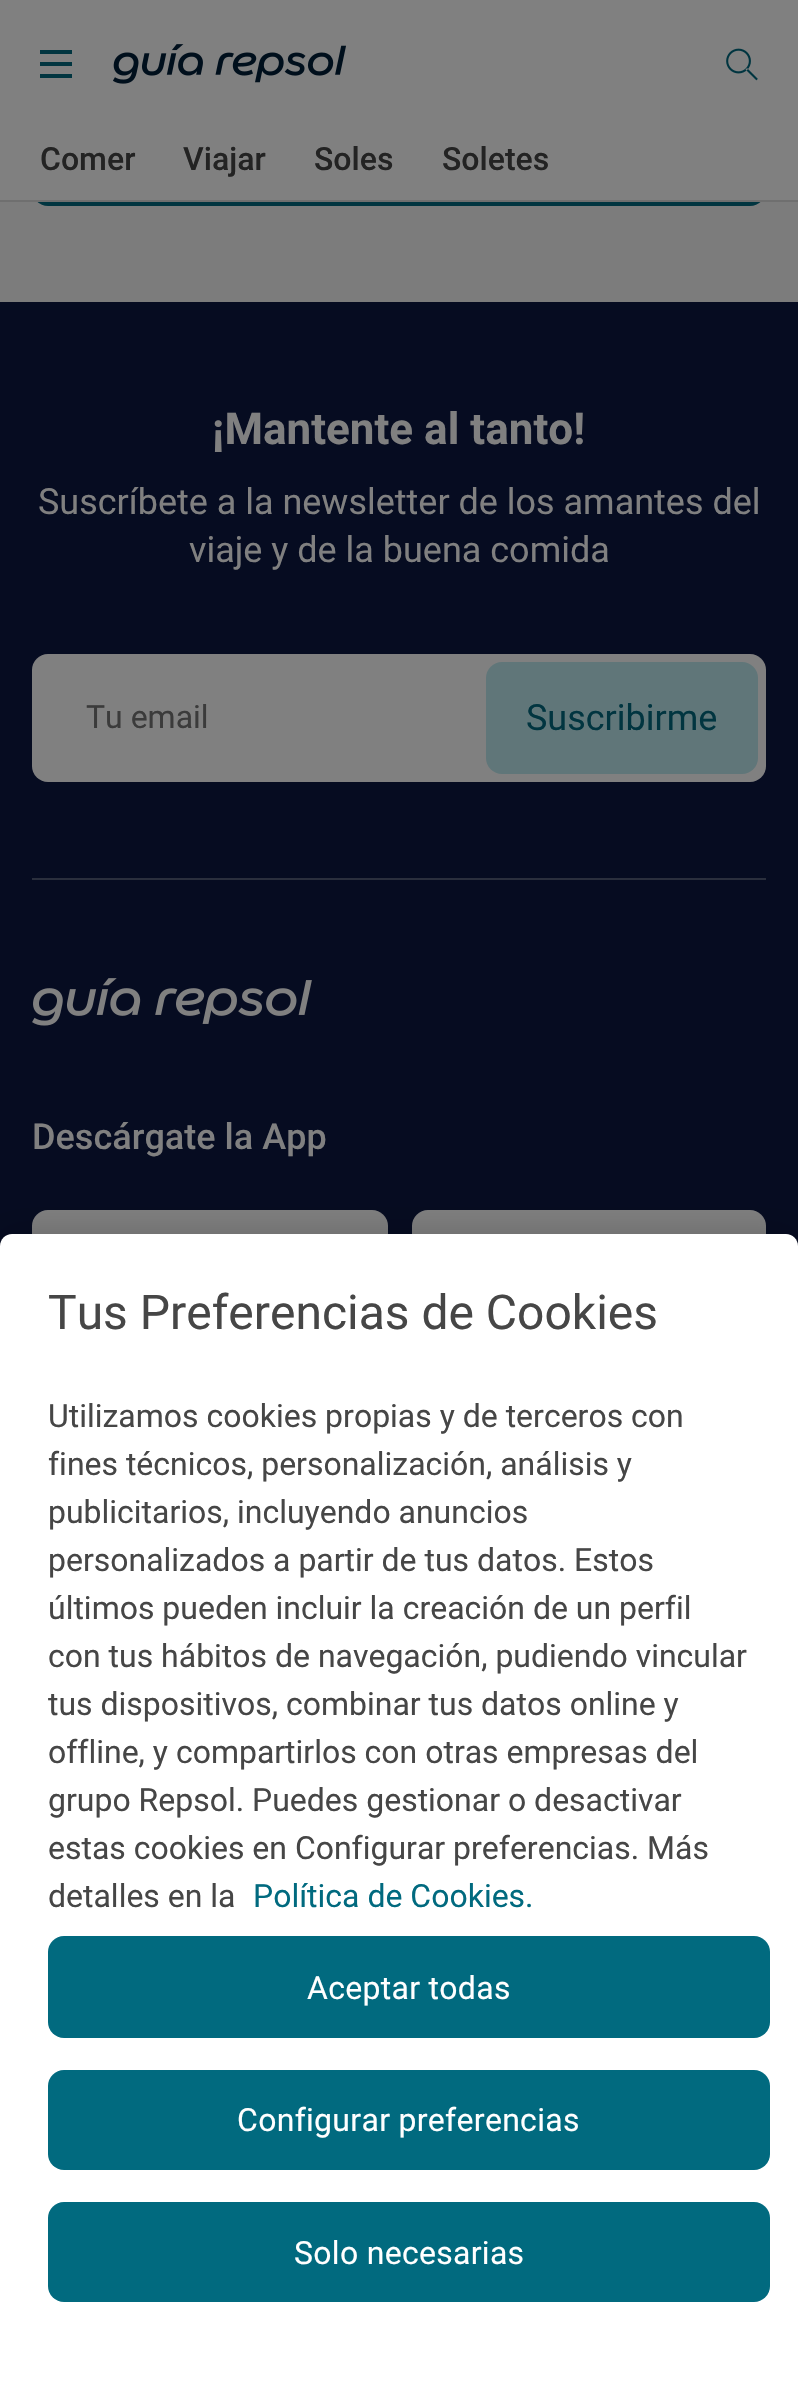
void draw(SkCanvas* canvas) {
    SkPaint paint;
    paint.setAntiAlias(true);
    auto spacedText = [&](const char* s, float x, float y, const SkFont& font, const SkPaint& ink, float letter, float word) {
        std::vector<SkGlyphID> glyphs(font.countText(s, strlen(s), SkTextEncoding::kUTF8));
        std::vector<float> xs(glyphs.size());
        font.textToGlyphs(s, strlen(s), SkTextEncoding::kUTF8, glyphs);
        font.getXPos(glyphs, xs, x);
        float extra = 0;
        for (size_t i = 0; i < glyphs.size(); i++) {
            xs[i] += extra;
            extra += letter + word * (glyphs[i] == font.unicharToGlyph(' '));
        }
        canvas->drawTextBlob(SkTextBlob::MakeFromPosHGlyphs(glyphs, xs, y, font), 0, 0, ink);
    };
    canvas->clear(0xFF7C7C7C);
    paint.setColor(0xFF013540);
    canvas->drawRoundRect(SkRect::MakeXYWH(32, 94, 734, 112), 16, 16, paint);
    paint.setColor(0xFF808080);
    canvas->drawRect(SkRect::MakeXYWH(0, 0, 798, 200), paint);
    paint.setColor(0xFF6F6F6F);
    canvas->drawRect(SkRect::MakeXYWH(0, 200, 798, 2), paint);
    paint.setColor(0xFF013540);
    canvas->drawRect(SkRect::MakeXYWH(40, 50, 32, 4), paint);
    canvas->drawRect(SkRect::MakeXYWH(40, 62, 32, 4), paint);
    canvas->drawRect(SkRect::MakeXYWH(40, 74, 32, 4), paint);
    canvas->drawImageRect(SkImages::DeferredFromEncodedData(SkData::MakeFromFileName("img1.png")), SkRect::MakeXYWH(113, 44, 233, 40), SkSamplingOptions());
    canvas->drawImageRect(SkImages::DeferredFromEncodedData(SkData::MakeFromFileName("img2.png")), SkRect::MakeXYWH(726, 48, 32, 33), SkSamplingOptions());
    SkFont font1(fontMgr->matchFamilyStyle("Roboto", SkFontStyle(500, SkFontStyle::kNormal_Width, SkFontStyle::kUpright_Slant)), 32);
    font1.setSubpixel(true);
    paint.setColor(0xFF232323);
    canvas->drawString("Comer", 40, 170, font1, paint);
    canvas->drawString("Viajar", 183, 170, font1, paint);
    canvas->drawString("Soles", 314, 170, font1, paint);
    canvas->drawString("Soletes", 442, 170, font1, paint);
    paint.setColor(0xFF060C21);
    canvas->drawRect(SkRect::MakeXYWH(0, 302, 798, 944), paint);
    SkFont font2(fontMgr->matchFamilyStyle("Roboto", SkFontStyle::Bold()), 44);
    font2.setSubpixel(true);
    paint.setColor(0xFF808080);
    canvas->drawString("¡Mantente al tanto!", 212, 444, font2, paint);
    SkFont font3(fontMgr->matchFamilyStyle("Roboto", SkFontStyle::Normal()), 36);
    font3.setSubpixel(true);
    canvas->drawString("Suscríbete a la newsletter de los amantes del", 38, 514, font3, paint);
    canvas->drawString("viaje y de la buena comida", 189, 562, font3, paint);
    canvas->drawRoundRect(SkRect::MakeXYWH(32, 654, 734, 128), 16, 16, paint);
    SkFont font4(fontMgr->matchFamilyStyle("Roboto", SkFontStyle::Normal()), 32);
    font4.setSubpixel(true);
    paint.setColor(0xFF3B3B3B);
    canvas->drawString("Tu email", 86, 728, font4, paint);
    paint.setColor(0xFF607679);
    canvas->drawRoundRect(SkRect::MakeXYWH(486, 662, 272, 112), 16, 16, paint);
    paint.setColor(0xFF013540);
    canvas->drawString("Suscribirme", 526, 730, font3, paint);
    paint.setColor(0xFF2A2F3D);
    canvas->drawRect(SkRect::MakeXYWH(32, 878, 734, 2), paint);
    canvas->drawImageRect(SkImages::DeferredFromEncodedData(SkData::MakeFromFileName("img3.png")), SkRect::MakeXYWH(32, 978, 280, 48), SkSamplingOptions());
    SkFont font5(fontMgr->matchFamilyStyle("Roboto", SkFontStyle(500, SkFontStyle::kNormal_Width, SkFontStyle::kUpright_Slant)), 36);
    font5.setSubpixel(true);
    paint.setColor(0xFF808080);
    canvas->drawString("Descárgate la App", 32, 1149, font5, paint);
    canvas->drawRoundRect(SkRect::MakeXYWH(32, 1210, 356, 112), 16, 16, paint);
    canvas->drawRoundRect(SkRect::MakeXYWH(412, 1210, 354, 112), 16, 16, paint);
    paint.setColor(0x33000000);
    paint.setMaskFilter(SkMaskFilter::MakeBlur(kNormal_SkBlurStyle, 18));
    canvas->drawRoundRect(SkRect::MakeXYWH(0, 1234, 798, 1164), 12, 12, paint);
    paint.setMaskFilter(nullptr);
    paint.setColor(0xFFFFFFFF);
    canvas->drawPath(SkPathBuilder().moveTo(12, 1234).lineTo(786, 1234).cubicTo(792.5f, 1234, 798, 1239.5f, 798, 1246).lineTo(798, 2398).lineTo(0, 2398).lineTo(0, 1246).cubicTo(0, 1239.5f, 5.5f, 1234, 12, 1234).close().detach(), paint);
    SkFont font6(fontMgr->matchFamilyStyle("Roboto", SkFontStyle::Normal()), 48);
    font6.setSubpixel(true);
    paint.setColor(0xFF464646);
    canvas->drawString("Tus Preferencias de Cookies", 48, 1329, font6, paint);
    canvas->drawString("Utilizamos cookies propias y de terceros con", 48, 1427, font4, paint);
    canvas->drawString("fines técnicos, personalización, análisis y", 48, 1475, font4, paint);
    canvas->drawString("publicitarios, incluyendo anuncios", 48, 1523, font4, paint);
    canvas->drawString("personalizados a partir de tus datos. Estos", 48, 1571, font4, paint);
    canvas->drawString("últimos pueden incluir la creación de un perfil", 48, 1619, font4, paint);
    canvas->drawString("con tus hábitos de navegación, pudiendo vincular", 48, 1667, font4, paint);
    canvas->drawString("tus dispositivos, combinar tus datos online y", 48, 1715, font4, paint);
    canvas->drawString("offline, y compartirlos con otras empresas del", 48, 1763, font4, paint);
    canvas->drawString("grupo Repsol. Puedes gestionar o desactivar", 48, 1811, font4, paint);
    canvas->drawString("estas cookies en Configurar preferencias. Más", 48, 1859, font4, paint);
    canvas->drawString("detalles en la", 48, 1907, font4, paint);
    paint.setColor(0xFF016A7F);
    canvas->drawString("Política de Cookies.", 253, 1907, font4, paint);
    canvas->drawRoundRect(SkRect::MakeXYWH(48, 1936, 722, 102), 16, 16, paint);
    paint.setColor(0xFFFFFFFF);
    spacedText("Aceptar todas", 307, 1999, font4, paint, 0.3f, 0);
    paint.setColor(0xFF016A7F);
    canvas->drawRoundRect(SkRect::MakeXYWH(48, 2070, 722, 100), 16, 16, paint);
    paint.setColor(0xFFFFFFFF);
    spacedText("Configurar preferencias", 237, 2131, font4, paint, 0.3f, 0);
    paint.setColor(0xFF016A7F);
    canvas->drawRoundRect(SkRect::MakeXYWH(48, 2202, 722, 100), 16, 16, paint);
    paint.setColor(0xFFFFFFFF);
    spacedText("Solo necesarias", 294, 2264, font4, paint, 0.3f, 0);
}
